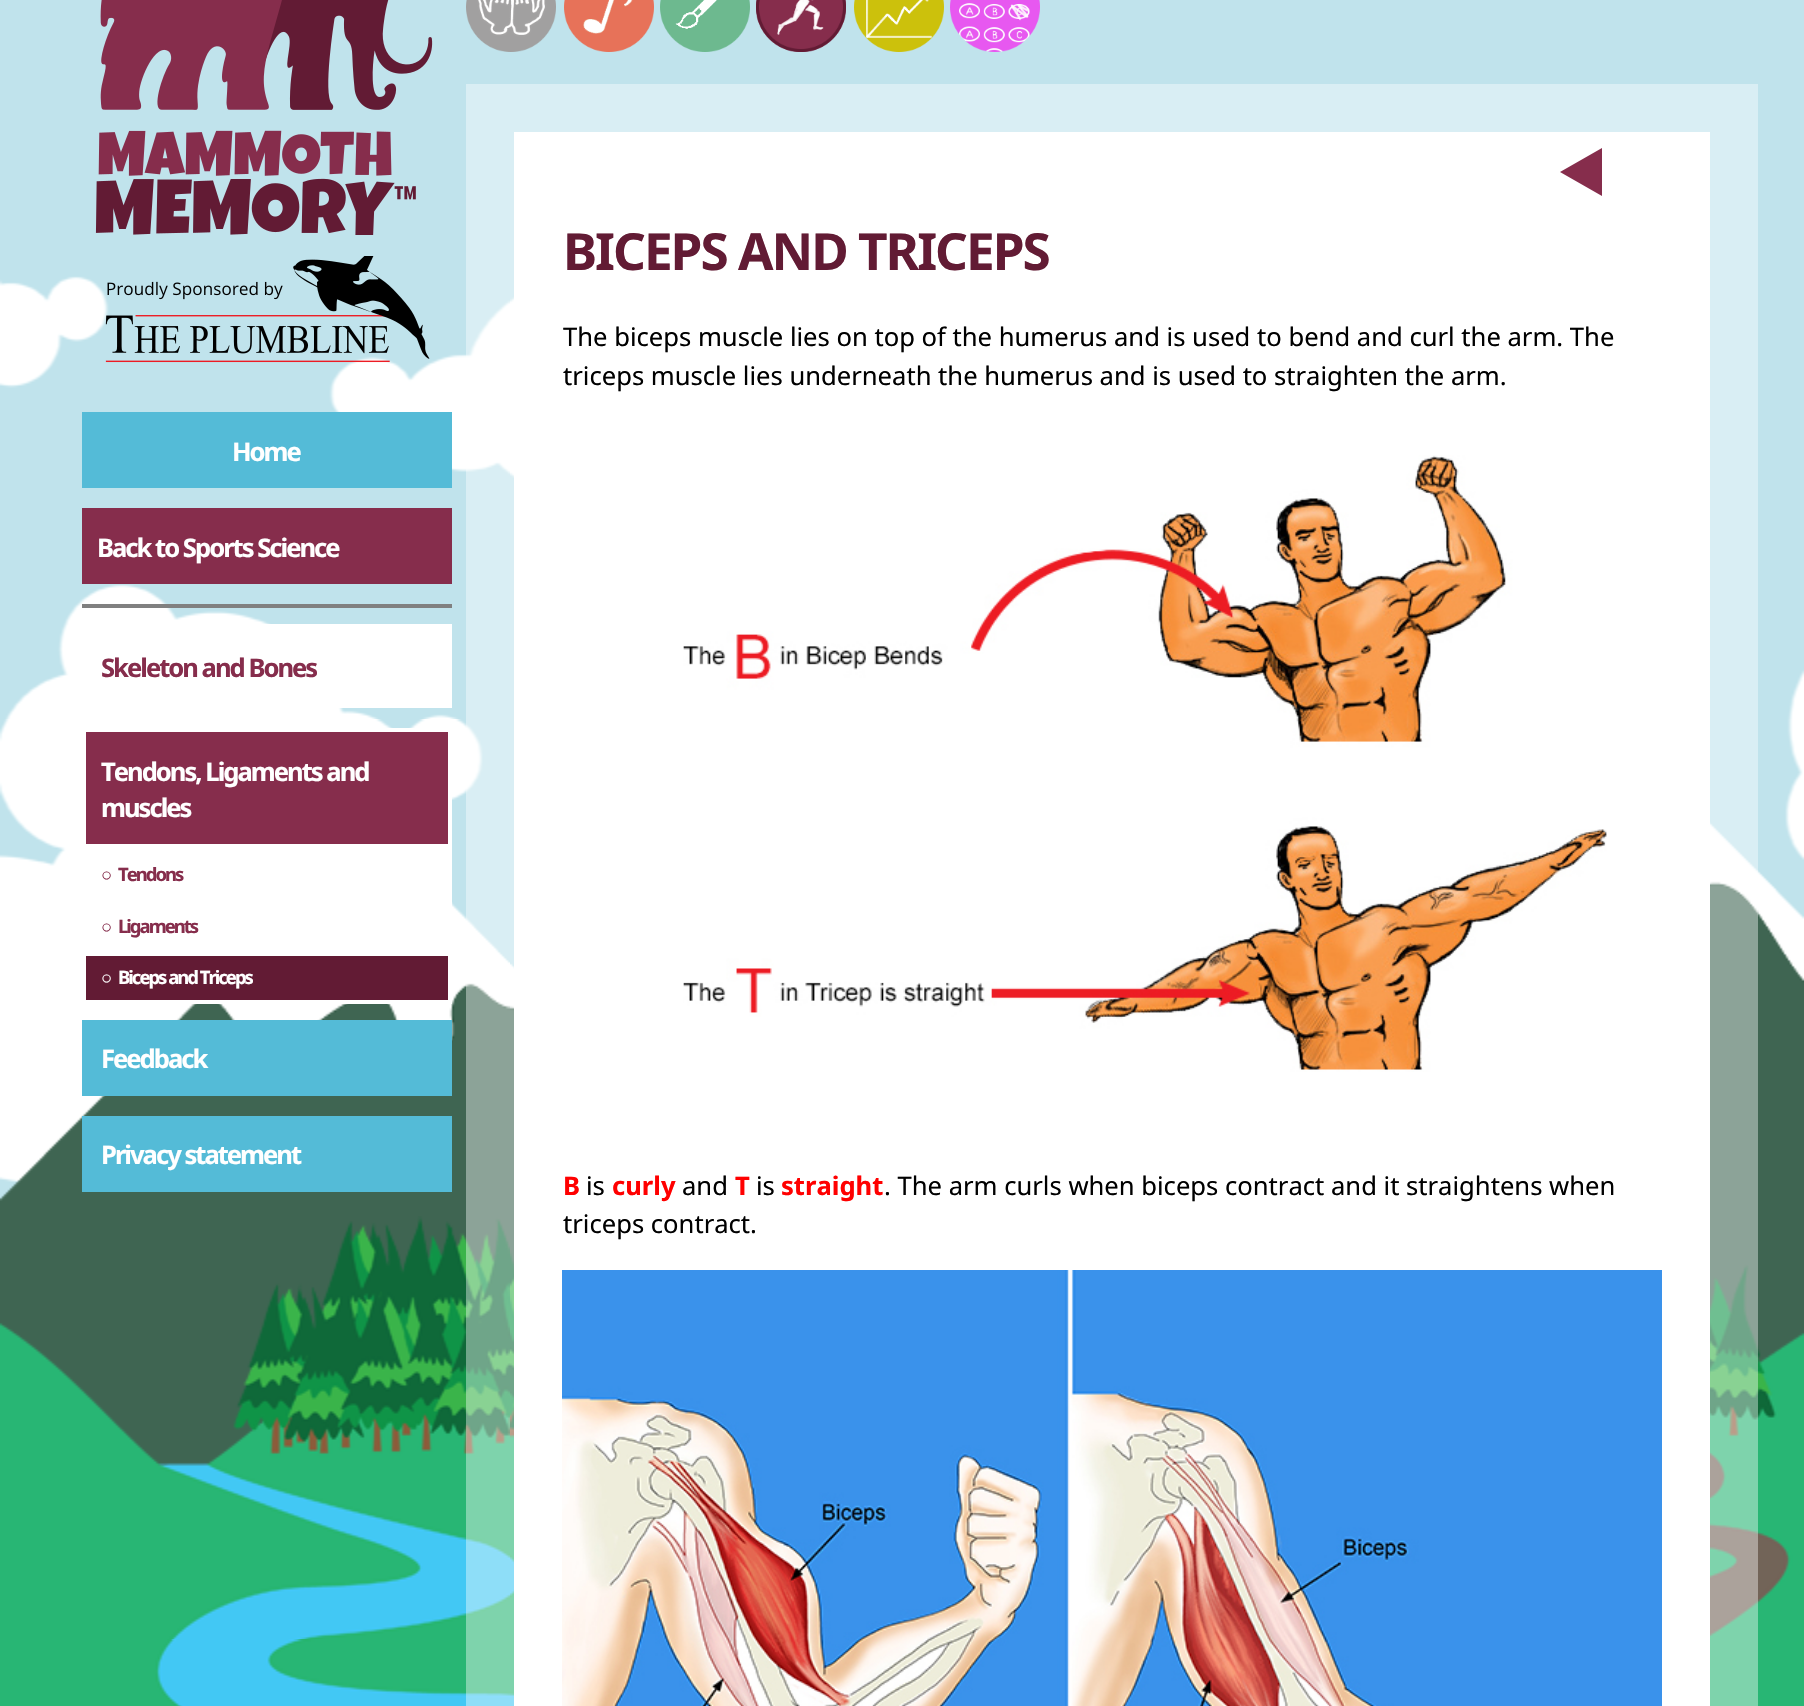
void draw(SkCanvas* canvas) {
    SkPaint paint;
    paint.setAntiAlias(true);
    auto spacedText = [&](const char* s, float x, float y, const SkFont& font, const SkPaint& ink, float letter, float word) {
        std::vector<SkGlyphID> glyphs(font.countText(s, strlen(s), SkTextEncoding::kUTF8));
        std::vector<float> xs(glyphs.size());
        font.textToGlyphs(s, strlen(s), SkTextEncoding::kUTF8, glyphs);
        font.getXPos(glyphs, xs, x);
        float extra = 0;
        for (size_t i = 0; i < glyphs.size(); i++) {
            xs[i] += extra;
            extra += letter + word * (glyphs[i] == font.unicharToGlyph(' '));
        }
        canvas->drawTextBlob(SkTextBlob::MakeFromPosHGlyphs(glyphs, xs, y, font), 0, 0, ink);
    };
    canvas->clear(0xFFC0E3EC);
    canvas->drawImageRect(SkImages::DeferredFromEncodedData(SkData::MakeFromFileName("img1.png")), SkRect::MakeXYWH(95, 0, 338, 235), SkSamplingOptions());
    canvas->drawImageRect(SkImages::DeferredFromEncodedData(SkData::MakeFromFileName("img12.png")), SkRect::MakeXYWH(0, 276, 1804, 908), SkSamplingOptions());
    canvas->drawImageRect(SkImages::DeferredFromEncodedData(SkData::MakeFromFileName("img2.png")), SkRect::MakeXYWH(105, 256, 325, 107), SkSamplingOptions());
    paint.setColor(0xFF54BBD7);
    canvas->drawRect(SkRect::MakeXYWH(82, 412, 370, 76), paint);
    SkFont font1(fontMgr->matchFamilyStyle("Noto Sans", SkFontStyle::Bold()), 25.6f);
    font1.setSubpixel(true);
    paint.setColor(0xFFFFFFFF);
    spacedText("Home", 232, 461, font1, paint, -2, 0);
    paint.setColor(0xFF862D4C);
    canvas->drawRect(SkRect::MakeXYWH(82, 508, 370, 76), paint);
    paint.setColor(0xFFFFFFFF);
    spacedText("Back to Sports Science", 97, 557, font1, paint, -2, 0);
    paint.setColor(0xFF808080);
    canvas->drawRect(SkRect::MakeXYWH(82, 604, 370, 4), paint);
    paint.setColor(0xFFFFFFFF);
    canvas->drawRect(SkRect::MakeXYWH(264, 624, 188, 84), paint);
    paint.setColor(0xFF862D4C);
    spacedText("Skeleton and Bones", 101, 677, font1, paint, -2, 0);
    canvas->drawImageRect(SkImages::DeferredFromEncodedData(SkData::MakeFromFileName("img13.png")), SkRect::MakeXYWH(0, 821, 1804, 515), SkSamplingOptions());
    canvas->drawRect(SkRect::MakeXYWH(84, 730, 366, 116), paint);
    paint.setStyle(SkPaint::kStroke_Style);
    paint.setStrokeWidth(4);
    paint.setColor(0xFFFFFFFF);
    canvas->drawRect(SkRect::MakeXYWH(84, 730, 366, 116), paint);
    paint.setStyle(SkPaint::kFill_Style);
    spacedText("Tendons, Ligaments and", 101, 781, font1, paint, -2, 0);
    spacedText("muscles", 101, 817, font1, paint, -2, 0);
    canvas->drawRect(SkRect::MakeXYWH(202, 848, 250, 70), paint);
    SkFont font2(fontMgr->matchFamilyStyle("Liberation Sans", SkFontStyle::Bold()), 18.5f);
    font2.setSubpixel(true);
    paint.setColor(0xFF862D4C);
    spacedText("○", 101, 881, font2, paint, -2, 0);
    SkFont font3(fontMgr->matchFamilyStyle("Noto Sans", SkFontStyle::Bold()), 18.5f);
    font3.setSubpixel(true);
    spacedText("Tendons", 118, 881, font3, paint, -2, 0);
    spacedText("○", 101, 933, font2, paint, -2, 0);
    spacedText("Ligaments", 118, 933, font3, paint, -2, 0);
    paint.setColor(0xFF621B34);
    canvas->drawRect(SkRect::MakeXYWH(84, 954, 366, 48), paint);
    paint.setStyle(SkPaint::kStroke_Style);
    paint.setColor(0xFFFFFFFF);
    canvas->drawRect(SkRect::MakeXYWH(84, 954, 366, 48), paint);
    paint.setStyle(SkPaint::kFill_Style);
    spacedText("○", 101, 984, font2, paint, -2, 0);
    spacedText("Biceps and Triceps", 118, 984, font3, paint, -2, 0);
    paint.setColor(0xFF54BBD7);
    canvas->drawRect(SkRect::MakeXYWH(82, 1020, 370, 76), paint);
    paint.setColor(0xFFFFFFFF);
    spacedText("Feedback", 101, 1068, font1, paint, -2, 0);
    paint.setColor(0xFF54BBD7);
    canvas->drawRect(SkRect::MakeXYWH(82, 1116, 370, 76), paint);
    paint.setColor(0xFFFFFFFF);
    spacedText("Privacy statement", 101, 1164, font1, paint, -2, 0);
    canvas->drawImageRect(SkImages::DeferredFromEncodedData(SkData::MakeFromFileName("img3.png")), SkRect::MakeXYWH(466, 0, 90, 52), SkSamplingOptions());
    canvas->drawImageRect(SkImages::DeferredFromEncodedData(SkData::MakeFromFileName("img4.png")), SkRect::MakeXYWH(564, 0, 90, 52), SkSamplingOptions());
    canvas->drawImageRect(SkImages::DeferredFromEncodedData(SkData::MakeFromFileName("img5.png")), SkRect::MakeXYWH(660, 0, 90, 52), SkSamplingOptions());
    canvas->drawImageRect(SkImages::DeferredFromEncodedData(SkData::MakeFromFileName("img6.png")), SkRect::MakeXYWH(756, 0, 90, 52), SkSamplingOptions());
    canvas->drawImageRect(SkImages::DeferredFromEncodedData(SkData::MakeFromFileName("img7.png")), SkRect::MakeXYWH(756, 0, 90, 52), SkSamplingOptions());
    canvas->drawImageRect(SkImages::DeferredFromEncodedData(SkData::MakeFromFileName("img8.png")), SkRect::MakeXYWH(854, 0, 90, 52), SkSamplingOptions());
    canvas->drawImageRect(SkImages::DeferredFromEncodedData(SkData::MakeFromFileName("img9.png")), SkRect::MakeXYWH(950, 0, 90, 52), SkSamplingOptions());
    paint.setColor(0xFF3F6552);
    canvas->drawRect(SkRect::MakeXYWH(15, 1336, 1788, 130), paint);
    canvas->drawImageRect(SkImages::DeferredFromEncodedData(SkData::MakeFromFileName("img14.png")), SkRect::MakeXYWH(0, 1216, 1804, 490), SkSamplingOptions());
    paint.setColor(0x66FFFFFF);
    canvas->drawRect(SkRect::MakeXYWH(466, 84, 1292, 1622), paint);
    paint.setColor(0xFFFFFFFF);
    canvas->drawRect(SkRect::MakeXYWH(514, 132, 1196, 1574), paint);
    paint.setColor(0xFF862D4C);
    canvas->drawPath(SkPathBuilder().moveTo(1602, 148).lineTo(1602, 196).lineTo(1560, 172).close().detach(), paint);
    SkFont font4(fontMgr->matchFamilyStyle("Noto Sans", SkFontStyle::Bold()), 51.25f);
    font4.setSubpixel(true);
    paint.setColor(0xFF621B34);
    spacedText("BICEPS AND TRICEPS", 563, 270, font4, paint, -2, 0);
    SkFont font5(fontMgr->matchFamilyStyle("Noto Sans", SkFontStyle::Normal()), 25.6f);
    font5.setSubpixel(true);
    paint.setColor(0xFF000000);
    canvas->drawString("The biceps muscle lies on top of the humerus and is used to bend and curl the arm. The", 563, 346, font5, paint);
    canvas->drawString("triceps muscle lies underneath the humerus and is used to straighten the arm.", 563, 385, font5, paint);
    canvas->drawImageRect(SkImages::DeferredFromEncodedData(SkData::MakeFromFileName("img10.png")), SkRect::MakeXYWH(683, 455, 924, 617), SkSamplingOptions());
    paint.setColor(0xFFFF0000);
    canvas->drawString("B", 563, 1195, font1, paint);
    paint.setColor(0xFF000000);
    canvas->drawString("is", 586, 1195, font5, paint);
    paint.setColor(0xFFFF0000);
    canvas->drawString("curly", 612, 1195, font1, paint);
    paint.setColor(0xFF000000);
    canvas->drawString("and", 682, 1195, font5, paint);
    paint.setColor(0xFFFF0000);
    canvas->drawString("T", 735, 1195, font1, paint);
    paint.setColor(0xFF000000);
    canvas->drawString("is", 756, 1195, font5, paint);
    paint.setColor(0xFFFF0000);
    canvas->drawString("straight", 781, 1195, font1, paint);
    paint.setColor(0xFF000000);
    canvas->drawString(". The arm curls when biceps contract and it straightens when", 884, 1195, font5, paint);
    canvas->drawString("triceps contract.", 563, 1233, font5, paint);
    canvas->drawImageRect(SkImages::DeferredFromEncodedData(SkData::MakeFromFileName("img11.png")), SkRect::MakeXYWH(562, 1270, 1100, 436), SkSamplingOptions());
}
